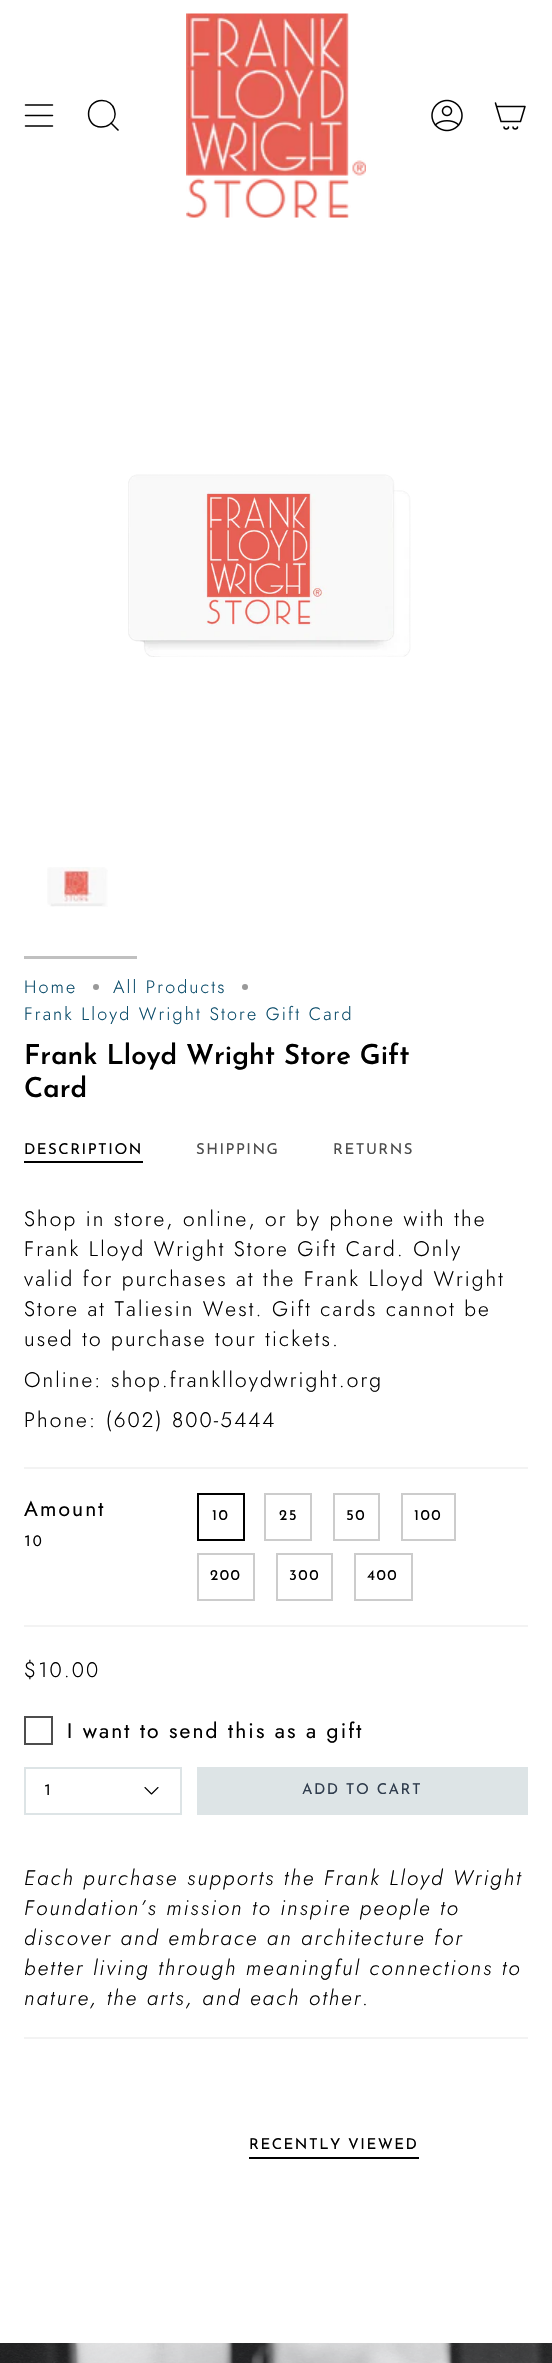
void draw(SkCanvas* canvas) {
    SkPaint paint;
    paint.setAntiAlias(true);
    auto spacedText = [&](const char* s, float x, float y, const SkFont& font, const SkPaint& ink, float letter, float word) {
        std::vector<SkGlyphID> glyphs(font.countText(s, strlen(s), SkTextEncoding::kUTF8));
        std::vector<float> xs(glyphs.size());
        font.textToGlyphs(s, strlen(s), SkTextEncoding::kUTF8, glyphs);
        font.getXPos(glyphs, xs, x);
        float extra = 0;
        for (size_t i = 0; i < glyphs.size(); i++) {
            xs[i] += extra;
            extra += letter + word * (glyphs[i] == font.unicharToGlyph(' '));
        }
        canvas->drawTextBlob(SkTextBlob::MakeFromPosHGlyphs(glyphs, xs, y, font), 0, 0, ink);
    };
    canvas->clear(0xFFFFFFFF);
    paint.setStyle(SkPaint::kStroke_Style);
    paint.setStrokeWidth(1.5f);
    paint.setStrokeCap(SkPaint::kRound_Cap);
    paint.setStrokeJoin(SkPaint::kRound_Join);
    paint.setColor(0xFF000000);
    canvas->drawPath(SkPathBuilder().moveTo(25.5f, 105).lineTo(52.5f, 105).moveTo(25.5f, 115.5f).lineTo(52.5f, 115.5f).moveTo(25.5f, 126).lineTo(52.5f, 126).detach(), paint);
    paint.setStrokeCap(SkPaint::kButt_Cap);
    paint.setStrokeJoin(SkPaint::kMiter_Join);
    canvas->drawPath(SkPathBuilder().moveTo(102, 100.5f).cubicTo(114.5f, 100.5f, 120, 117, 109.5f, 124.5f).cubicTo(107, 126.5f, 104, 127, 101, 127).cubicTo(84, 126.5f, 84.5f, 100.5f, 102, 100.5f).close().moveTo(111, 123).lineTo(118.5f, 130.5f).detach(), paint);
    canvas->drawImageRect(SkImages::DeferredFromEncodedData(SkData::MakeFromFileName("img1.png")), SkRect::MakeXYWH(186, 13, 180, 205), SkSamplingOptions());
    canvas->drawImageRect(SkImages::DeferredFromEncodedData(SkData::MakeFromFileName("img2.png")), SkRect::MakeXYWH(431, 99, 32, 33), SkSamplingOptions());
    paint.setStrokeCap(SkPaint::kRound_Cap);
    paint.setStrokeJoin(SkPaint::kRound_Join);
    canvas->drawPath(SkPathBuilder().moveTo(496.5f, 106.5f).lineTo(525, 106.5f).lineTo(520.5f, 121.5f).lineTo(501, 121.5f).close().moveTo(496.5f, 106.5f).lineTo(495.5f, 103).moveTo(508.5f, 127).cubicTo(508.5f, 129.5f, 504, 129.5f, 504, 127).moveTo(517.5f, 127).cubicTo(517.5f, 129.5f, 513, 129.5f, 513, 127).detach(), paint);
    canvas->drawImageRect(SkImages::DeferredFromEncodedData(SkData::MakeFromFileName("img3.png")), SkRect::MakeXYWH(128, 474, 283, 183), SkSamplingOptions());
    canvas->drawImageRect(SkImages::DeferredFromEncodedData(SkData::MakeFromFileName("img4.png")), SkRect::MakeXYWH(47, 867, 61, 40), SkSamplingOptions());
    paint.setStyle(SkPaint::kFill_Style);
    paint.setColor(0xFFC0C0C0);
    canvas->drawRect(SkRect::MakeXYWH(24, 956, 113, 3), paint);
    SkFont font1(fontMgr->matchFamilyStyle("Jost", SkFontStyle(300, SkFontStyle::kNormal_Width, SkFontStyle::kUpright_Slant)), 18);
    font1.setSubpixel(true);
    paint.setColor(0xFF0C4D6B);
    spacedText("Home", 24, 993, font1, paint, 2.1f, 0);
    paint.setColor(0xFF999999);
    canvas->drawCircle(96, 987, 3, paint);
    paint.setColor(0xFF0C4D6B);
    spacedText("All Products", 113, 993, font1, paint, 2.1f, 0);
    paint.setColor(0xFF999999);
    canvas->drawCircle(245, 987, 3, paint);
    paint.setColor(0xFF0C4D6B);
    spacedText("Frank Lloyd Wright Store Gift Card", 24, 1020, font1, paint, 2.1f, 0);
    SkFont font2(fontMgr->matchFamilyStyle("Josefin Sans", SkFontStyle(600, SkFontStyle::kNormal_Width, SkFontStyle::kUpright_Slant)), 27.6f);
    font2.setSubpixel(true);
    paint.setColor(0xFF000000);
    canvas->drawString("Frank Lloyd Wright Store Gift", 24, 1064, font2, paint);
    canvas->drawString("Card", 24, 1097, font2, paint);
    SkFont font3(fontMgr->matchFamilyStyle("Josefin Sans", SkFontStyle::Normal()), 15);
    font3.setSubpixel(true);
    spacedText("DESCRIPTION", 24, 1154, font3, paint, 1.5f, 0);
    canvas->drawRect(SkRect::MakeXYWH(24, 1161, 119, 2), paint);
    paint.setColor(0xFF4D4D4D);
    spacedText("SHIPPING", 196, 1154, font3, paint, 1.5f, 0);
    spacedText("RETURNS", 333, 1154, font3, paint, 1.5f, 0);
    SkFont font4(fontMgr->matchFamilyStyle("Jost", SkFontStyle(300, SkFontStyle::kNormal_Width, SkFontStyle::kUpright_Slant)), 21);
    font4.setSubpixel(true);
    paint.setColor(0xFF000000);
    spacedText("Shop in store, online, or by phone with the", 24, 1226, font4, paint, 2.1f, 0);
    spacedText("Frank Lloyd Wright Store Gift Card. Only", 24, 1256, font4, paint, 2.1f, 0);
    spacedText("valid for purchases at the Frank Lloyd Wright", 24, 1286, font4, paint, 2.1f, 0);
    spacedText("Store at Taliesin West. Gift cards cannot be", 24, 1316, font4, paint, 2.1f, 0);
    spacedText("used to purchase tour tickets.", 24, 1346, font4, paint, 2.1f, 0);
    spacedText("Online: shop.franklloydwright.org", 24, 1387, font4, paint, 2.1f, 0);
    spacedText("Phone: (602) 800-5444", 24, 1427, font4, paint, 2.1f, 0);
    paint.setColor(0xFFF3F3F3);
    canvas->drawRect(SkRect::MakeXYWH(24, 1467, 504, 2), paint);
    canvas->drawRect(SkRect::MakeXYWH(24, 1625, 504, 2), paint);
    SkFont font5(fontMgr->matchFamilyStyle("Jost", SkFontStyle::Normal()), 21);
    font5.setSubpixel(true);
    paint.setColor(0xFF000000);
    spacedText("Amount", 24, 1516, font5, paint, 2.1f, 0);
    SkFont font6(fontMgr->matchFamilyStyle("Jost", SkFontStyle::Normal()), 15);
    font6.setSubpixel(true);
    spacedText("10", 24, 1546, font6, paint, 2.1f, 0);
    paint.setStyle(SkPaint::kStroke_Style);
    paint.setStrokeWidth(2);
    paint.setStrokeCap(SkPaint::kButt_Cap);
    paint.setStrokeJoin(SkPaint::kMiter_Join);
    canvas->drawRect(SkRect::MakeXYWH(198, 1494, 46, 46), paint);
    paint.setStyle(SkPaint::kFill_Style);
    spacedText("10", 212, 1520, font3, paint, 1.5f, 0);
    paint.setStyle(SkPaint::kStroke_Style);
    paint.setColor(0xFFCCCCCC);
    canvas->drawRect(SkRect::MakeXYWH(265, 1494, 46, 46), paint);
    paint.setStyle(SkPaint::kFill_Style);
    paint.setColor(0xFF000000);
    spacedText("25", 279, 1520, font3, paint, 1.5f, 0);
    paint.setStyle(SkPaint::kStroke_Style);
    paint.setColor(0xFFCCCCCC);
    canvas->drawRect(SkRect::MakeXYWH(334, 1494, 45, 46), paint);
    paint.setStyle(SkPaint::kFill_Style);
    paint.setColor(0xFF000000);
    spacedText("50", 346, 1520, font3, paint, 1.5f, 0);
    paint.setStyle(SkPaint::kStroke_Style);
    paint.setColor(0xFFCCCCCC);
    canvas->drawRect(SkRect::MakeXYWH(402, 1494, 53, 46), paint);
    paint.setStyle(SkPaint::kFill_Style);
    paint.setColor(0xFF000000);
    spacedText("100", 414, 1520, font3, paint, 1.5f, 0);
    paint.setStyle(SkPaint::kStroke_Style);
    paint.setColor(0xFFCCCCCC);
    canvas->drawRect(SkRect::MakeXYWH(198, 1554, 56, 46), paint);
    paint.setStyle(SkPaint::kFill_Style);
    paint.setColor(0xFF000000);
    spacedText("200", 210, 1580, font3, paint, 1.5f, 0);
    paint.setStyle(SkPaint::kStroke_Style);
    paint.setColor(0xFFCCCCCC);
    canvas->drawRect(SkRect::MakeXYWH(277, 1554, 55, 46), paint);
    paint.setStyle(SkPaint::kFill_Style);
    paint.setColor(0xFF000000);
    spacedText("300", 289, 1580, font3, paint, 1.5f, 0);
    paint.setStyle(SkPaint::kStroke_Style);
    paint.setColor(0xFFCCCCCC);
    canvas->drawRect(SkRect::MakeXYWH(355, 1554, 57, 46), paint);
    paint.setStyle(SkPaint::kFill_Style);
    paint.setColor(0xFF000000);
    spacedText("400", 367, 1580, font3, paint, 1.5f, 0);
    spacedText("$10.00", 24, 1677, font4, paint, 2.1f, 0);
    paint.setStyle(SkPaint::kStroke_Style);
    paint.setColor(0xFF4D4D4D);
    canvas->drawRect(SkRect::MakeXYWH(25, 1717, 27, 27), paint);
    paint.setStyle(SkPaint::kFill_Style);
    paint.setColor(0xFF000000);
    spacedText("I want to send this as a gift", 67, 1738, font5, paint, 2.1f, 0);
    paint.setStyle(SkPaint::kStroke_Style);
    paint.setColor(0xFFDDE4E6);
    canvas->drawRect(SkRect::MakeXYWH(25, 1768, 156, 46), paint);
    paint.setStyle(SkPaint::kFill_Style);
    paint.setColor(0xFF000000);
    canvas->drawString("1", 44, 1795, font6, paint);
    paint.setStyle(SkPaint::kStroke_Style);
    paint.setStrokeWidth(1.1f);
    paint.setStrokeCap(SkPaint::kRound_Cap);
    paint.setStrokeJoin(SkPaint::kRound_Join);
    canvas->drawPath(SkPathBuilder().moveTo(145, 1787.5f).lineTo(151.5f, 1794).lineTo(158, 1787.5f).detach(), paint);
    paint.setStyle(SkPaint::kFill_Style);
    paint.setColor(0xFFDDE4E6);
    canvas->drawRect(SkRect::MakeXYWH(197, 1767, 331, 48), paint);
    paint.setColor(0xFF2F3C4D);
    spacedText("ADD TO CART", 302, 1794, font3, paint, 1.5f, 0);
    paint.setStyle(SkPaint::kStroke_Style);
    paint.setStrokeWidth(1.5f);
    paint.setStrokeCap(SkPaint::kButt_Cap);
    paint.setStrokeJoin(SkPaint::kMiter_Join);
    paint.setColor(0xFFDDE4E6);
    canvas->drawCircle(363, 1791, 10.5f, paint);
    SkFont font7(fontMgr->matchFamilyStyle("Jost", SkFontStyle(300, SkFontStyle::kNormal_Width, SkFontStyle::kItalic_Slant)), 21);
    font7.setSubpixel(true);
    paint.setStyle(SkPaint::kFill_Style);
    paint.setColor(0xFF000000);
    spacedText("Each purchase supports the Frank Lloyd Wright", 24, 1885, font7, paint, 2.1f, 0);
    spacedText("Foundation’s mission to inspire people to", 24, 1915, font7, paint, 2.1f, 0);
    spacedText("discover and embrace an architecture for", 24, 1945, font7, paint, 2.1f, 0);
    spacedText("better living through meaningful connections to", 24, 1975, font7, paint, 2.1f, 0);
    spacedText("nature, the arts, and each other.", 24, 2005, font7, paint, 2.1f, 0);
    paint.setColor(0xFFF3F3F3);
    canvas->drawRect(SkRect::MakeXYWH(24, 2037, 504, 2), paint);
    paint.setColor(0xFF000000);
    spacedText("RECENTLY VIEWED", 249, 2149, font3, paint, 1.5f, 0);
    canvas->drawRect(SkRect::MakeXYWH(249, 2157, 170, 2), paint);
    canvas->drawImageRect(SkImages::DeferredFromEncodedData(SkData::MakeFromFileName("img5.png")), SkRect::MakeXYWH(0, 2343, 552, 20), SkSamplingOptions());
}
